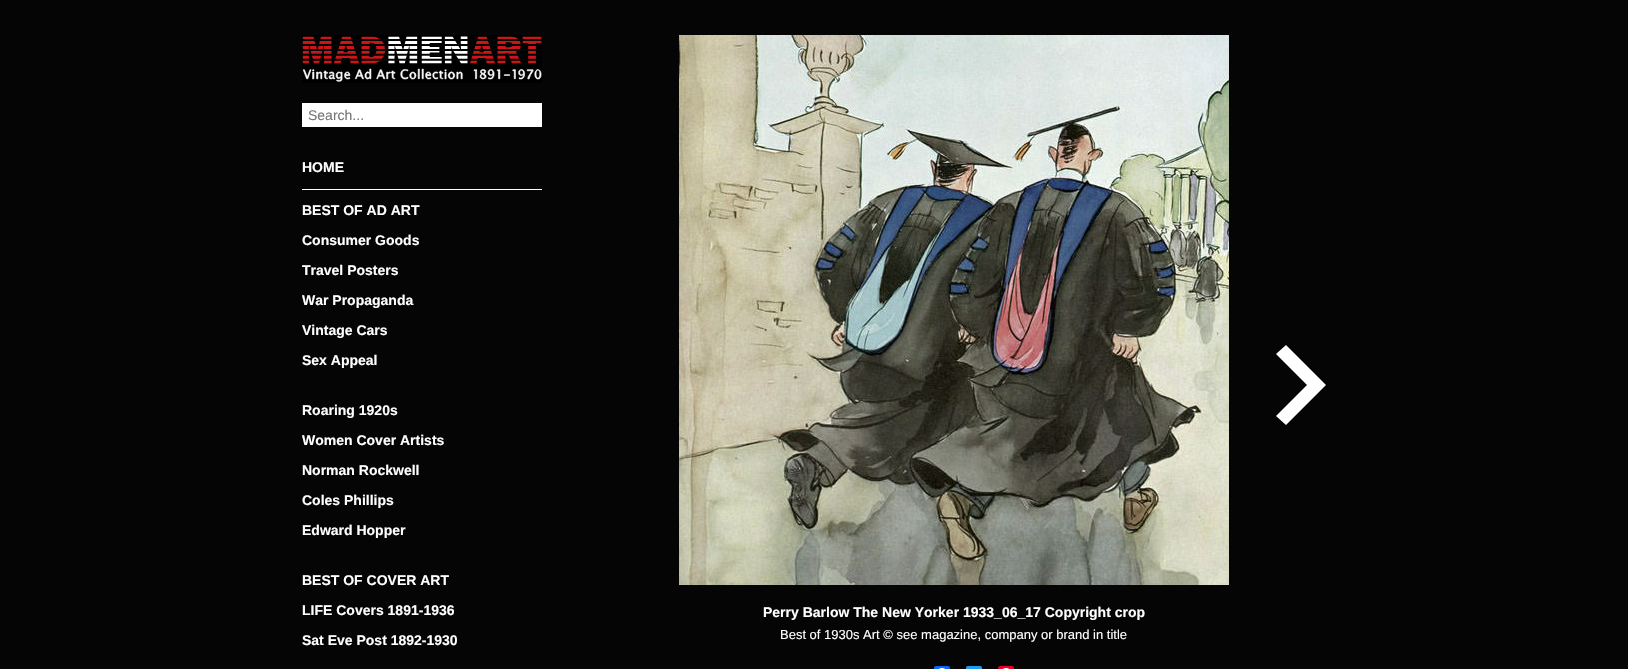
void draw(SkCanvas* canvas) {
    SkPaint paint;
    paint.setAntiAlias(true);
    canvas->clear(0xFF050505);
    canvas->drawImageRect(SkImages::DeferredFromEncodedData(SkData::MakeFromFileName("img1.png")), SkRect::MakeXYWH(302, 35, 240, 48), SkSamplingOptions());
    paint.setColor(0xFFFFFFFF);
    canvas->drawRect(SkRect::MakeXYWH(302, 103, 240, 24), paint);
    SkFont font1(fontMgr->matchFamilyStyle("Liberation Sans", SkFontStyle::Normal()), 14);
    font1.setSubpixel(true);
    paint.setColor(0xFF757575);
    canvas->drawString("Search...", 308, 120, font1, paint);
    paint.setColor(0xFFFFFFFF);
    canvas->drawRect(SkRect::MakeXYWH(302, 189, 240, 1), paint);
    SkFont font2(fontMgr->matchFamilyStyle("Liberation Sans", SkFontStyle::Bold()), 14);
    font2.setSubpixel(true);
    canvas->drawString("HOME", 302, 172, font2, paint);
    canvas->drawString("BEST OF AD ART", 302, 215, font2, paint);
    canvas->drawString("Consumer Goods", 302, 245, font2, paint);
    canvas->drawString("Travel Posters", 302, 275, font2, paint);
    canvas->drawString("War Propaganda", 302, 305, font2, paint);
    canvas->drawString("Vintage Cars", 302, 335, font2, paint);
    canvas->drawString("Sex Appeal", 302, 365, font2, paint);
    canvas->drawString("Roaring 1920s", 302, 415, font2, paint);
    canvas->drawString("Women Cover Artists", 302, 445, font2, paint);
    canvas->drawString("Norman Rockwell", 302, 475, font2, paint);
    canvas->drawString("Coles Phillips", 302, 505, font2, paint);
    canvas->drawString("Edward Hopper", 302, 535, font2, paint);
    canvas->drawString("BEST OF COVER ART", 302, 585, font2, paint);
    canvas->drawString("LIFE Covers 1891-1936", 302, 615, font2, paint);
    canvas->drawString("Sat Eve Post 1892-1930", 302, 645, font2, paint);
    canvas->drawPath(SkPathBuilder().moveTo(1286, 345).lineTo(1276, 354).lineTo(1307, 385).lineTo(1276, 416).lineTo(1286, 425).lineTo(1326, 385).close().detach(), paint);
    canvas->drawImageRect(SkImages::DeferredFromEncodedData(SkData::MakeFromFileName("img2.png")), SkRect::MakeXYWH(679, 35, 550, 550), SkSamplingOptions());
    canvas->drawString("Perry Barlow The New Yorker 1933_06_17 Copyright crop", 763, 617, font2, paint);
    SkFont font3(fontMgr->matchFamilyStyle("Liberation Sans", SkFontStyle::Normal()), 13);
    font3.setSubpixel(true);
    canvas->drawString("Best of 1930s Art © see magazine, company or brand in title", 780, 639, font3, paint);
    paint.setColor(0xFF0866FF);
    canvas->drawRoundRect(SkRect::MakeXYWH(934, 666, 16, 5), 2, 2, paint);
    canvas->drawImageRect(SkImages::DeferredFromEncodedData(SkData::MakeFromFileName("img3.png")), SkRect::MakeXYWH(938, 668, 8, 1), SkSamplingOptions());
    paint.setColor(0xFF1D9BF0);
    canvas->drawRoundRect(SkRect::MakeXYWH(966, 666, 16, 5), 2, 2, paint);
    paint.setColor(0xFFE60023);
    canvas->drawRoundRect(SkRect::MakeXYWH(998, 666, 16, 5), 2, 2, paint);
    canvas->drawImageRect(SkImages::DeferredFromEncodedData(SkData::MakeFromFileName("img4.png")), SkRect::MakeXYWH(1002, 668, 8, 1), SkSamplingOptions());
}
